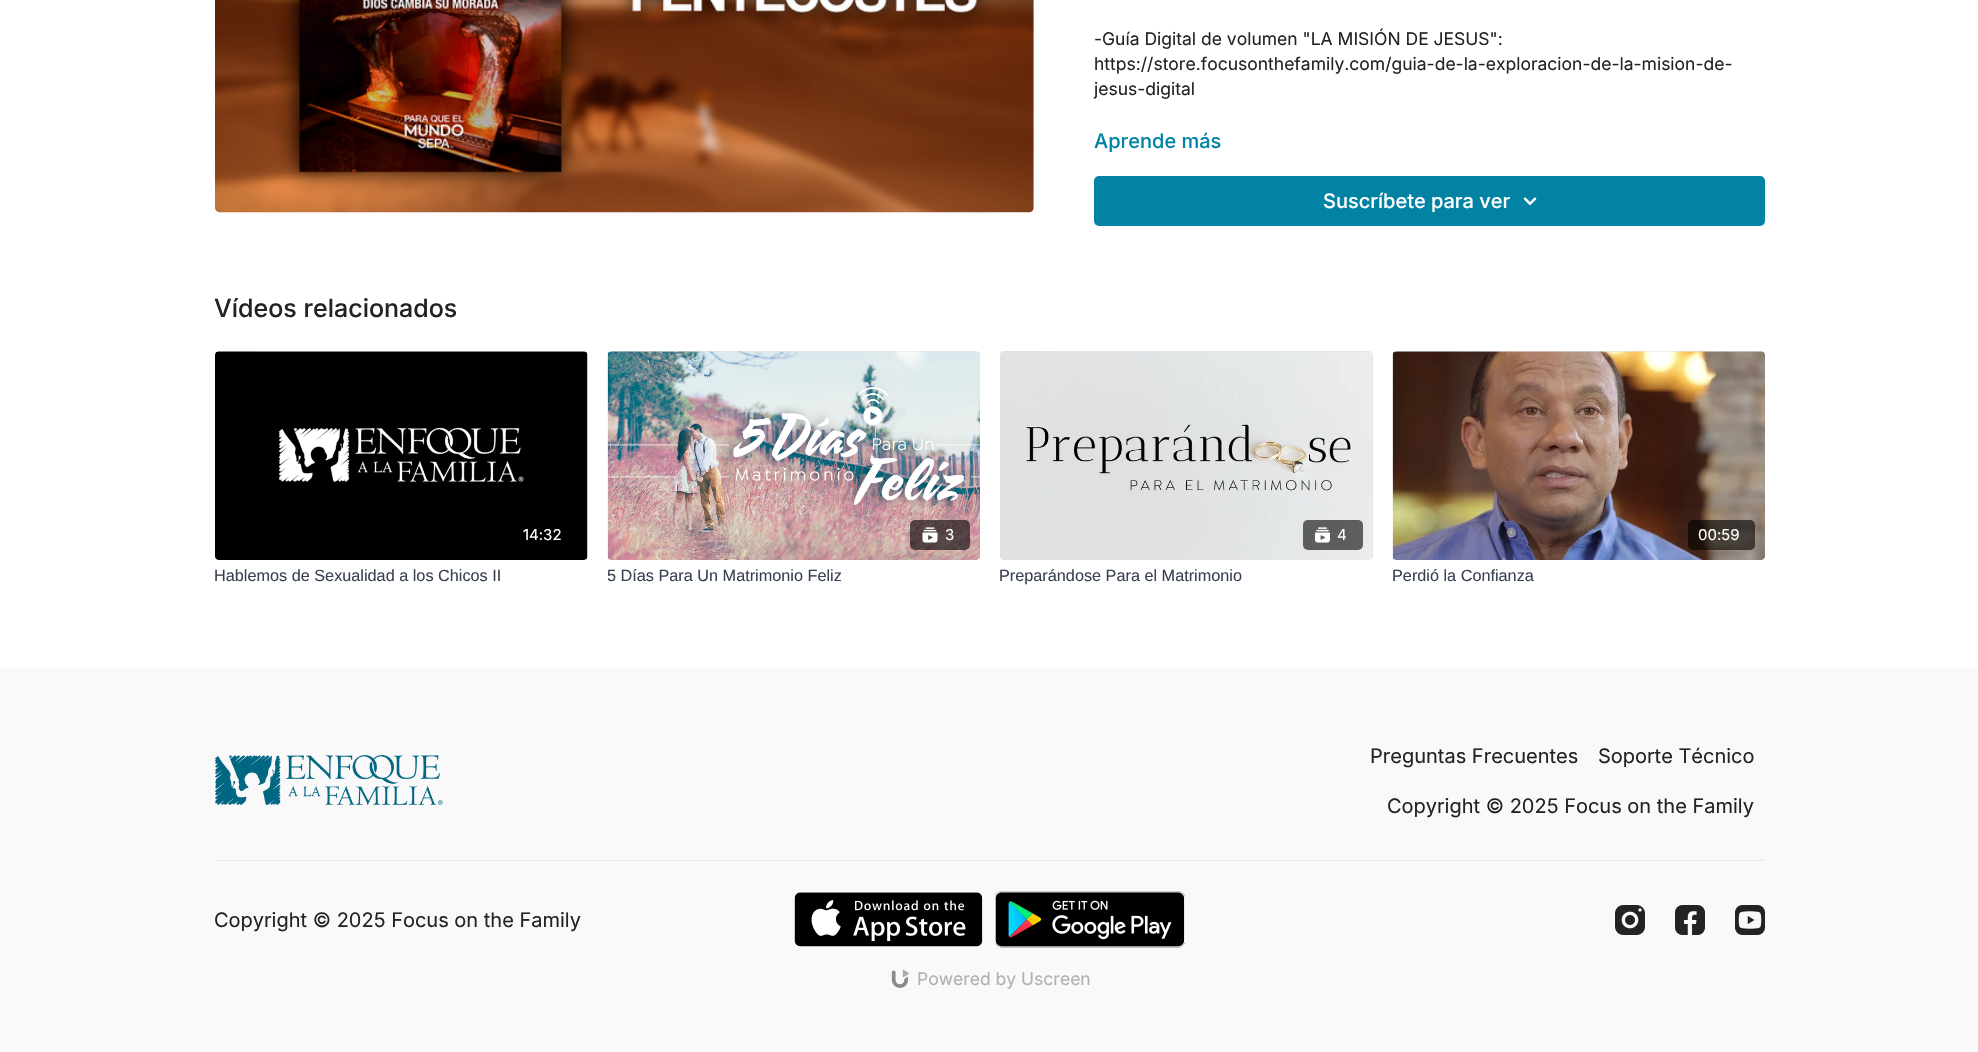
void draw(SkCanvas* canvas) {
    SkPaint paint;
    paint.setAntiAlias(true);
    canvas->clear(0xFFFFFFFF);
    canvas->drawImageRect(SkImages::DeferredFromEncodedData(SkData::MakeFromFileName("img1.png")), SkRect::MakeXYWH(215, 0, 819, 213), SkSamplingOptions());
    SkFont font1(fontMgr->matchFamilyStyle("Inter", SkFontStyle::Normal()), 17.5f);
    font1.setSubpixel(true);
    paint.setColor(0xFF232323);
    canvas->drawString("-Guía Digital de volumen \"LA MISIÓN DE JESUS\":", 1094, 45, font1, paint);
    canvas->drawString("https://store.focusonthefamily.com/guia-de-la-exploracion-de-la-mision-de-", 1094, 70, font1, paint);
    canvas->drawString("jesus-digital", 1094, 95, font1, paint);
    SkFont font2(fontMgr->matchFamilyStyle("Inter", SkFontStyle(500, SkFontStyle::kNormal_Width, SkFontStyle::kUpright_Slant)), 20);
    font2.setSubpixel(true);
    paint.setColor(0xFF0283A3);
    canvas->drawString("Aprende más", 1094, 148, font2, paint);
    canvas->drawRoundRect(SkRect::MakeXYWH(1094, 176, 671, 50), 5, 5, paint);
    paint.setColor(0xFFFFFFFF);
    canvas->drawString("Suscríbete para ver", 1323, 208, font2, paint);
    canvas->drawImageRect(SkImages::DeferredFromEncodedData(SkData::MakeFromFileName("img2.png")), SkRect::MakeXYWH(1523, 197, 14, 8), SkSamplingOptions());
    SkFont font3(fontMgr->matchFamilyStyle("Inter", SkFontStyle(500, SkFontStyle::kNormal_Width, SkFontStyle::kUpright_Slant)), 25);
    font3.setSubpixel(true);
    paint.setColor(0xFF232323);
    canvas->drawString("Vídeos relacionados", 214, 317, font3, paint);
    {
        const SkColor colors[] = {0xFFDEDEDE, 0xFFE1E1E1, 0xFFE3E3E3};
        const float stops[] = {0.08f, 0.18f, 0.33f};
        const SkPoint ends[] = {{215, 456}, {588, 456}};
        paint.setShader(SkGradientShader::MakeLinear(ends, colors, stops, 3, SkTileMode::kClamp));
        paint.setAlpha(255);
    }
    canvas->drawRoundRect(SkRect::MakeXYWH(215, 351, 373, 209), 5, 5, paint);
    canvas->drawImageRect(SkImages::DeferredFromEncodedData(SkData::MakeFromFileName("img3.png")), SkRect::MakeXYWH(215, 351, 373, 209), SkSamplingOptions());
    SkFont font4(fontMgr->matchFamilyStyle("Inter", SkFontStyle::Normal()), 15);
    font4.setSubpixel(true);
    paint.setShader(nullptr);
    paint.setColor(0xFFFFFFFF);
    canvas->drawString("14:32", 523, 540, font4, paint);
    SkFont font5(fontMgr->matchFamilyStyle("Liberation Sans", SkFontStyle::Normal()), 16.25f);
    font5.setSubpixel(true);
    paint.setColor(0xFF374151);
    canvas->drawString("Hablemos de Sexualidad a los Chicos II", 214, 581, font5, paint);
    {
        const SkColor colors[] = {0xFFDEDEDE, 0xFFE1E1E1, 0xFFE3E3E3};
        const float stops[] = {0.08f, 0.18f, 0.33f};
        const SkPoint ends[] = {{608, 456}, {980, 456}};
        paint.setShader(SkGradientShader::MakeLinear(ends, colors, stops, 3, SkTileMode::kClamp));
        paint.setAlpha(255);
    }
    canvas->drawRoundRect(SkRect::MakeXYWH(608, 351, 372, 209), 5, 5, paint);
    canvas->drawImageRect(SkImages::DeferredFromEncodedData(SkData::MakeFromFileName("img4.png")), SkRect::MakeXYWH(607, 351, 373, 209), SkSamplingOptions());
    paint.setShader(nullptr);
    paint.setColor(0x99000000);
    canvas->drawRoundRect(SkRect::MakeXYWH(910, 520, 60, 30), 5, 5, paint);
    canvas->drawImageRect(SkImages::DeferredFromEncodedData(SkData::MakeFromFileName("img5.png")), SkRect::MakeXYWH(922, 527, 16, 16), SkSamplingOptions());
    paint.setColor(0xFFFFFFFF);
    canvas->drawString("3", 945, 540, font4, paint);
    canvas->save();
    canvas->clipRect(SkRect::MakeXYWH(608, 564, 372, 24));
    paint.setColor(0xFF374151);
    canvas->drawString("5 Días Para Un Matrimonio Feliz", 607, 581, font5, paint);
    canvas->restore();
    {
        const SkColor colors[] = {0xFFDEDEDE, 0xFFE1E1E1, 0xFFE3E3E3};
        const float stops[] = {0.08f, 0.18f, 0.33f};
        const SkPoint ends[] = {{1000, 456}, {1373, 456}};
        paint.setShader(SkGradientShader::MakeLinear(ends, colors, stops, 3, SkTileMode::kClamp));
        paint.setAlpha(255);
    }
    canvas->drawRoundRect(SkRect::MakeXYWH(1000, 351, 373, 209), 5, 5, paint);
    canvas->drawImageRect(SkImages::DeferredFromEncodedData(SkData::MakeFromFileName("img6.png")), SkRect::MakeXYWH(1000, 351, 372, 209), SkSamplingOptions());
    paint.setShader(nullptr);
    paint.setColor(0x99000000);
    canvas->drawRoundRect(SkRect::MakeXYWH(1303, 520, 60, 30), 5, 5, paint);
    canvas->drawImageRect(SkImages::DeferredFromEncodedData(SkData::MakeFromFileName("img7.png")), SkRect::MakeXYWH(1315, 527, 15, 16), SkSamplingOptions());
    paint.setColor(0xFFFFFFFF);
    canvas->drawString("4", 1337, 540, font4, paint);
    paint.setColor(0xFF374151);
    canvas->drawString("Preparándose Para el Matrimonio", 999, 581, font5, paint);
    {
        const SkColor colors[] = {0xFFDEDEDE, 0xFFE1E1E1, 0xFFE3E3E3};
        const float stops[] = {0.08f, 0.18f, 0.33f};
        const SkPoint ends[] = {{1393, 456}, {1765, 456}};
        paint.setShader(SkGradientShader::MakeLinear(ends, colors, stops, 3, SkTileMode::kClamp));
        paint.setAlpha(255);
    }
    canvas->drawRoundRect(SkRect::MakeXYWH(1393, 351, 372, 209), 5, 5, paint);
    canvas->drawImageRect(SkImages::DeferredFromEncodedData(SkData::MakeFromFileName("img8.png")), SkRect::MakeXYWH(1392, 351, 373, 209), SkSamplingOptions());
    paint.setShader(nullptr);
    paint.setColor(0x99000000);
    canvas->drawRoundRect(SkRect::MakeXYWH(1688, 520, 67, 30), 5, 5, paint);
    paint.setColor(0xFFFFFFFF);
    canvas->drawString("00:59", 1698, 540, font4, paint);
    paint.setColor(0xFF374151);
    canvas->drawString("Perdió la Confianza", 1392, 581, font5, paint);
    paint.setColor(0xFFF9F9F9);
    canvas->drawRect(SkRect::MakeXYWH(0, 668, 1978, 384), paint);
    canvas->drawImageRect(SkImages::DeferredFromEncodedData(SkData::MakeFromFileName("img9.png")), SkRect::MakeXYWH(215, 755, 228, 50), SkSamplingOptions());
    SkFont font6(fontMgr->matchFamilyStyle("Inter", SkFontStyle::Normal()), 20);
    font6.setSubpixel(true);
    paint.setColor(0xFF232323);
    canvas->drawString("Preguntas Frecuentes", 1370, 763, font6, paint);
    canvas->drawString("Soporte Técnico", 1598, 763, font6, paint);
    canvas->drawString("Copyright © 2025 Focus on the Family", 1387, 813, font6, paint);
    paint.setColor(0xFFE9E9E9);
    canvas->drawRect(SkRect::MakeXYWH(215, 860, 1550, 1), paint);
    paint.setColor(0xFF232323);
    canvas->drawString("Copyright © 2025 Focus on the Family", 214, 927, font6, paint);
    canvas->drawImageRect(SkImages::DeferredFromEncodedData(SkData::MakeFromFileName("img10.png")), SkRect::MakeXYWH(794, 891, 189, 57), SkSamplingOptions());
    canvas->drawImageRect(SkImages::DeferredFromEncodedData(SkData::MakeFromFileName("img11.png")), SkRect::MakeXYWH(995, 891, 190, 57), SkSamplingOptions());
    canvas->drawImageRect(SkImages::DeferredFromEncodedData(SkData::MakeFromFileName("img12.png")), SkRect::MakeXYWH(1615, 905, 30, 30), SkSamplingOptions());
    canvas->drawImageRect(SkImages::DeferredFromEncodedData(SkData::MakeFromFileName("img13.png")), SkRect::MakeXYWH(1675, 905, 30, 30), SkSamplingOptions());
    canvas->drawImageRect(SkImages::DeferredFromEncodedData(SkData::MakeFromFileName("img14.png")), SkRect::MakeXYWH(1735, 905, 30, 30), SkSamplingOptions());
    canvas->drawImageRect(SkImages::DeferredFromEncodedData(SkData::MakeFromFileName("img15.png")), SkRect::MakeXYWH(891, 969, 18, 19), SkSamplingOptions());
    paint.setColor(0xFFB0B0B0);
    canvas->drawString("Powered by Uscreen", 917, 985, font1, paint);
}
